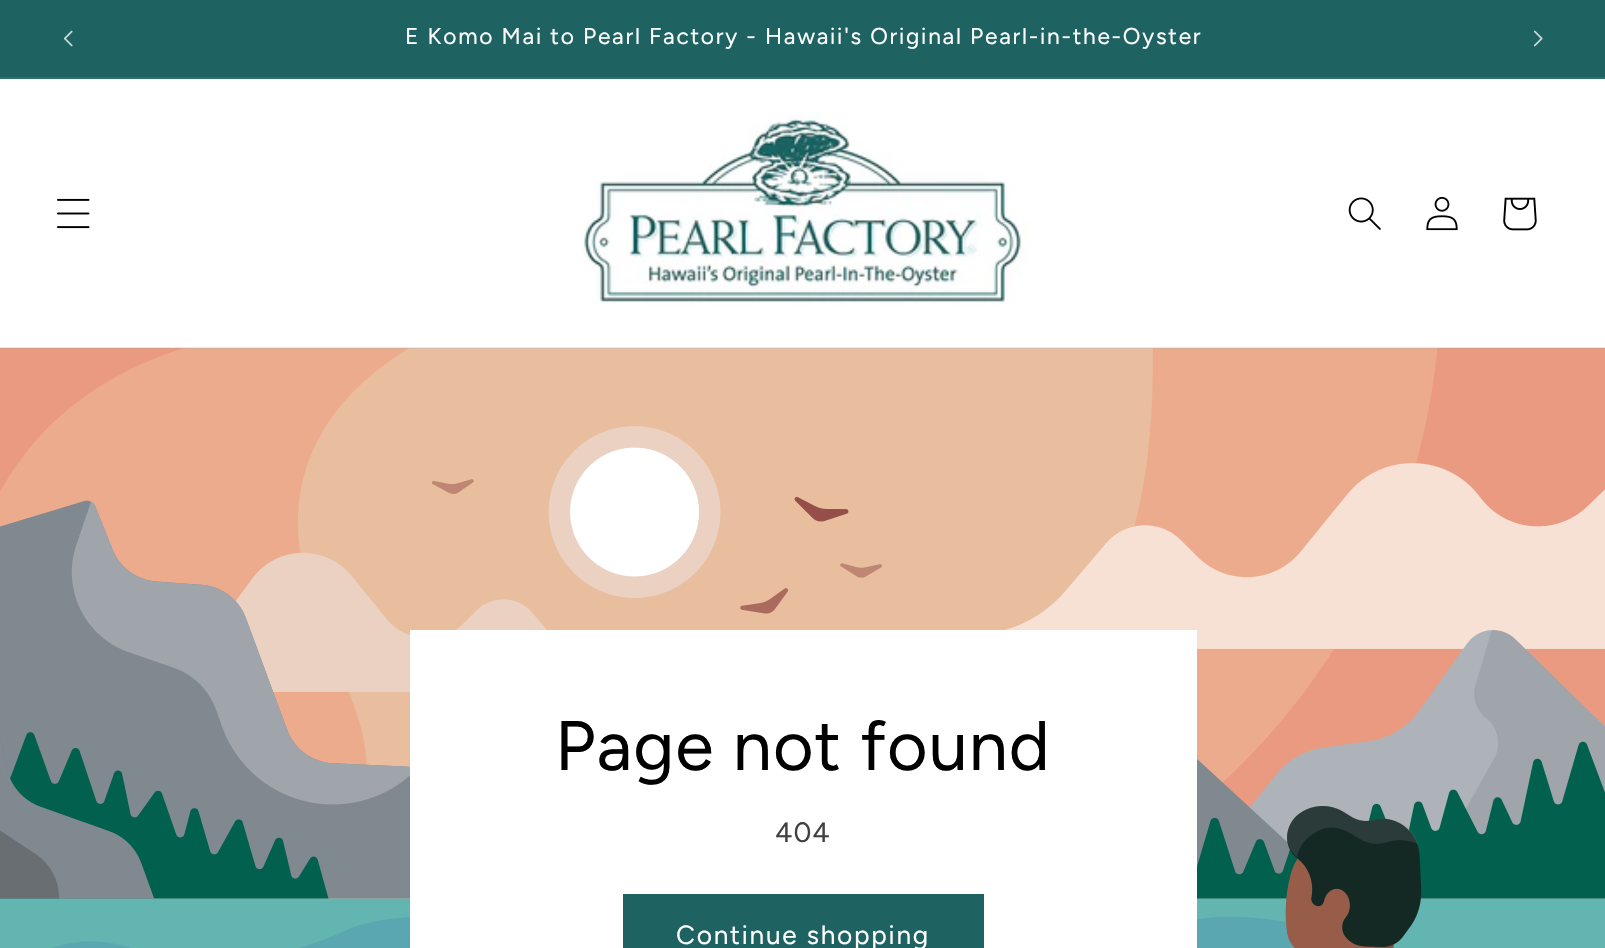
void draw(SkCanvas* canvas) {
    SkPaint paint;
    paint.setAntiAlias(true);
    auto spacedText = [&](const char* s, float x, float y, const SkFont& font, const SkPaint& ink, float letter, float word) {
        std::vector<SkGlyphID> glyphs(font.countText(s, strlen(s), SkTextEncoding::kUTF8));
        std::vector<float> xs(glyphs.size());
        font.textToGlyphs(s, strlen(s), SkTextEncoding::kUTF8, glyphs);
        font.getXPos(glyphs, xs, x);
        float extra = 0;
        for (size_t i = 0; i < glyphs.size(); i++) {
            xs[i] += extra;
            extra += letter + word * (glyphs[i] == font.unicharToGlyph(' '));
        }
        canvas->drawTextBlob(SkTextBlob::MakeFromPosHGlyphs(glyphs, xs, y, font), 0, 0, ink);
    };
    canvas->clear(0xFFFFFFFF);
    paint.setColor(0xFF1E6262);
    canvas->drawRect(SkRect::MakeXYWH(0, 0, 1605, 77), paint);
    paint.setColor(0xFF306F6F);
    canvas->drawRect(SkRect::MakeXYWH(0, 77, 1605, 2), paint);
    canvas->drawImageRect(SkImages::DeferredFromEncodedData(SkData::MakeFromFileName("img1.png")), SkRect::MakeXYWH(63, 30, 10, 17), SkSamplingOptions());
    SkFont font1(fontMgr->matchFamilyStyle("Figtree", SkFontStyle::Normal()), 22.75f);
    font1.setSubpixel(true);
    paint.setColor(0xFFFFFFFF);
    spacedText("E Komo Mai to Pearl Factory - Hawaii's Original Pearl-in-the-Oyster", 405, 44, font1, paint, 1.75f, 0);
    canvas->drawImageRect(SkImages::DeferredFromEncodedData(SkData::MakeFromFileName("img2.png")), SkRect::MakeXYWH(1533, 30, 10, 17), SkSamplingOptions());
    canvas->drawImageRect(SkImages::DeferredFromEncodedData(SkData::MakeFromFileName("img8.png")), SkRect::MakeXYWH(0, 348, 1605, 600), SkSamplingOptions());
    paint.setColor(0x14000000);
    canvas->drawRect(SkRect::MakeXYWH(0, 347, 1605, 2), paint);
    canvas->drawImageRect(SkImages::DeferredFromEncodedData(SkData::MakeFromFileName("img3.png")), SkRect::MakeXYWH(57, 198, 33, 31), SkSamplingOptions());
    canvas->drawImageRect(SkImages::DeferredFromEncodedData(SkData::MakeFromFileName("img4.png")), SkRect::MakeXYWH(582, 111, 447, 194), SkSamplingOptions());
    canvas->drawImageRect(SkImages::DeferredFromEncodedData(SkData::MakeFromFileName("img5.png")), SkRect::MakeXYWH(1348, 197, 33, 33), SkSamplingOptions());
    canvas->drawImageRect(SkImages::DeferredFromEncodedData(SkData::MakeFromFileName("img6.png")), SkRect::MakeXYWH(1426, 196, 32, 35), SkSamplingOptions());
    canvas->drawImageRect(SkImages::DeferredFromEncodedData(SkData::MakeFromFileName("img7.png")), SkRect::MakeXYWH(1503, 197, 34, 34), SkSamplingOptions());
    paint.setColor(0xFFFFFFFF);
    canvas->drawRect(SkRect::MakeXYWH(410, 630, 787, 318), paint);
    SkFont font2(fontMgr->matchFamilyStyle("Figtree", SkFontStyle::Normal()), 70);
    font2.setSubpixel(true);
    paint.setColor(0xFF000000);
    spacedText("Page not found", 555, 770, font2, paint, 1, 0);
    SkFont font3(fontMgr->matchFamilyStyle("Figtree", SkFontStyle::Normal()), 28);
    font3.setSubpixel(true);
    paint.setColor(0xFF404040);
    spacedText("404", 775, 842, font3, paint, 1, 0);
    paint.setColor(0xFF1E6262);
    canvas->drawRect(SkRect::MakeXYWH(623, 894, 361, 54), paint);
    SkFont font4(fontMgr->matchFamilyStyle("Figtree", SkFontStyle::Normal()), 26.25f);
    font4.setSubpixel(true);
    paint.setColor(0xFFFFFFFF);
    spacedText("Continue shopping", 676, 944, font4, paint, 1.75f, 0);
}
